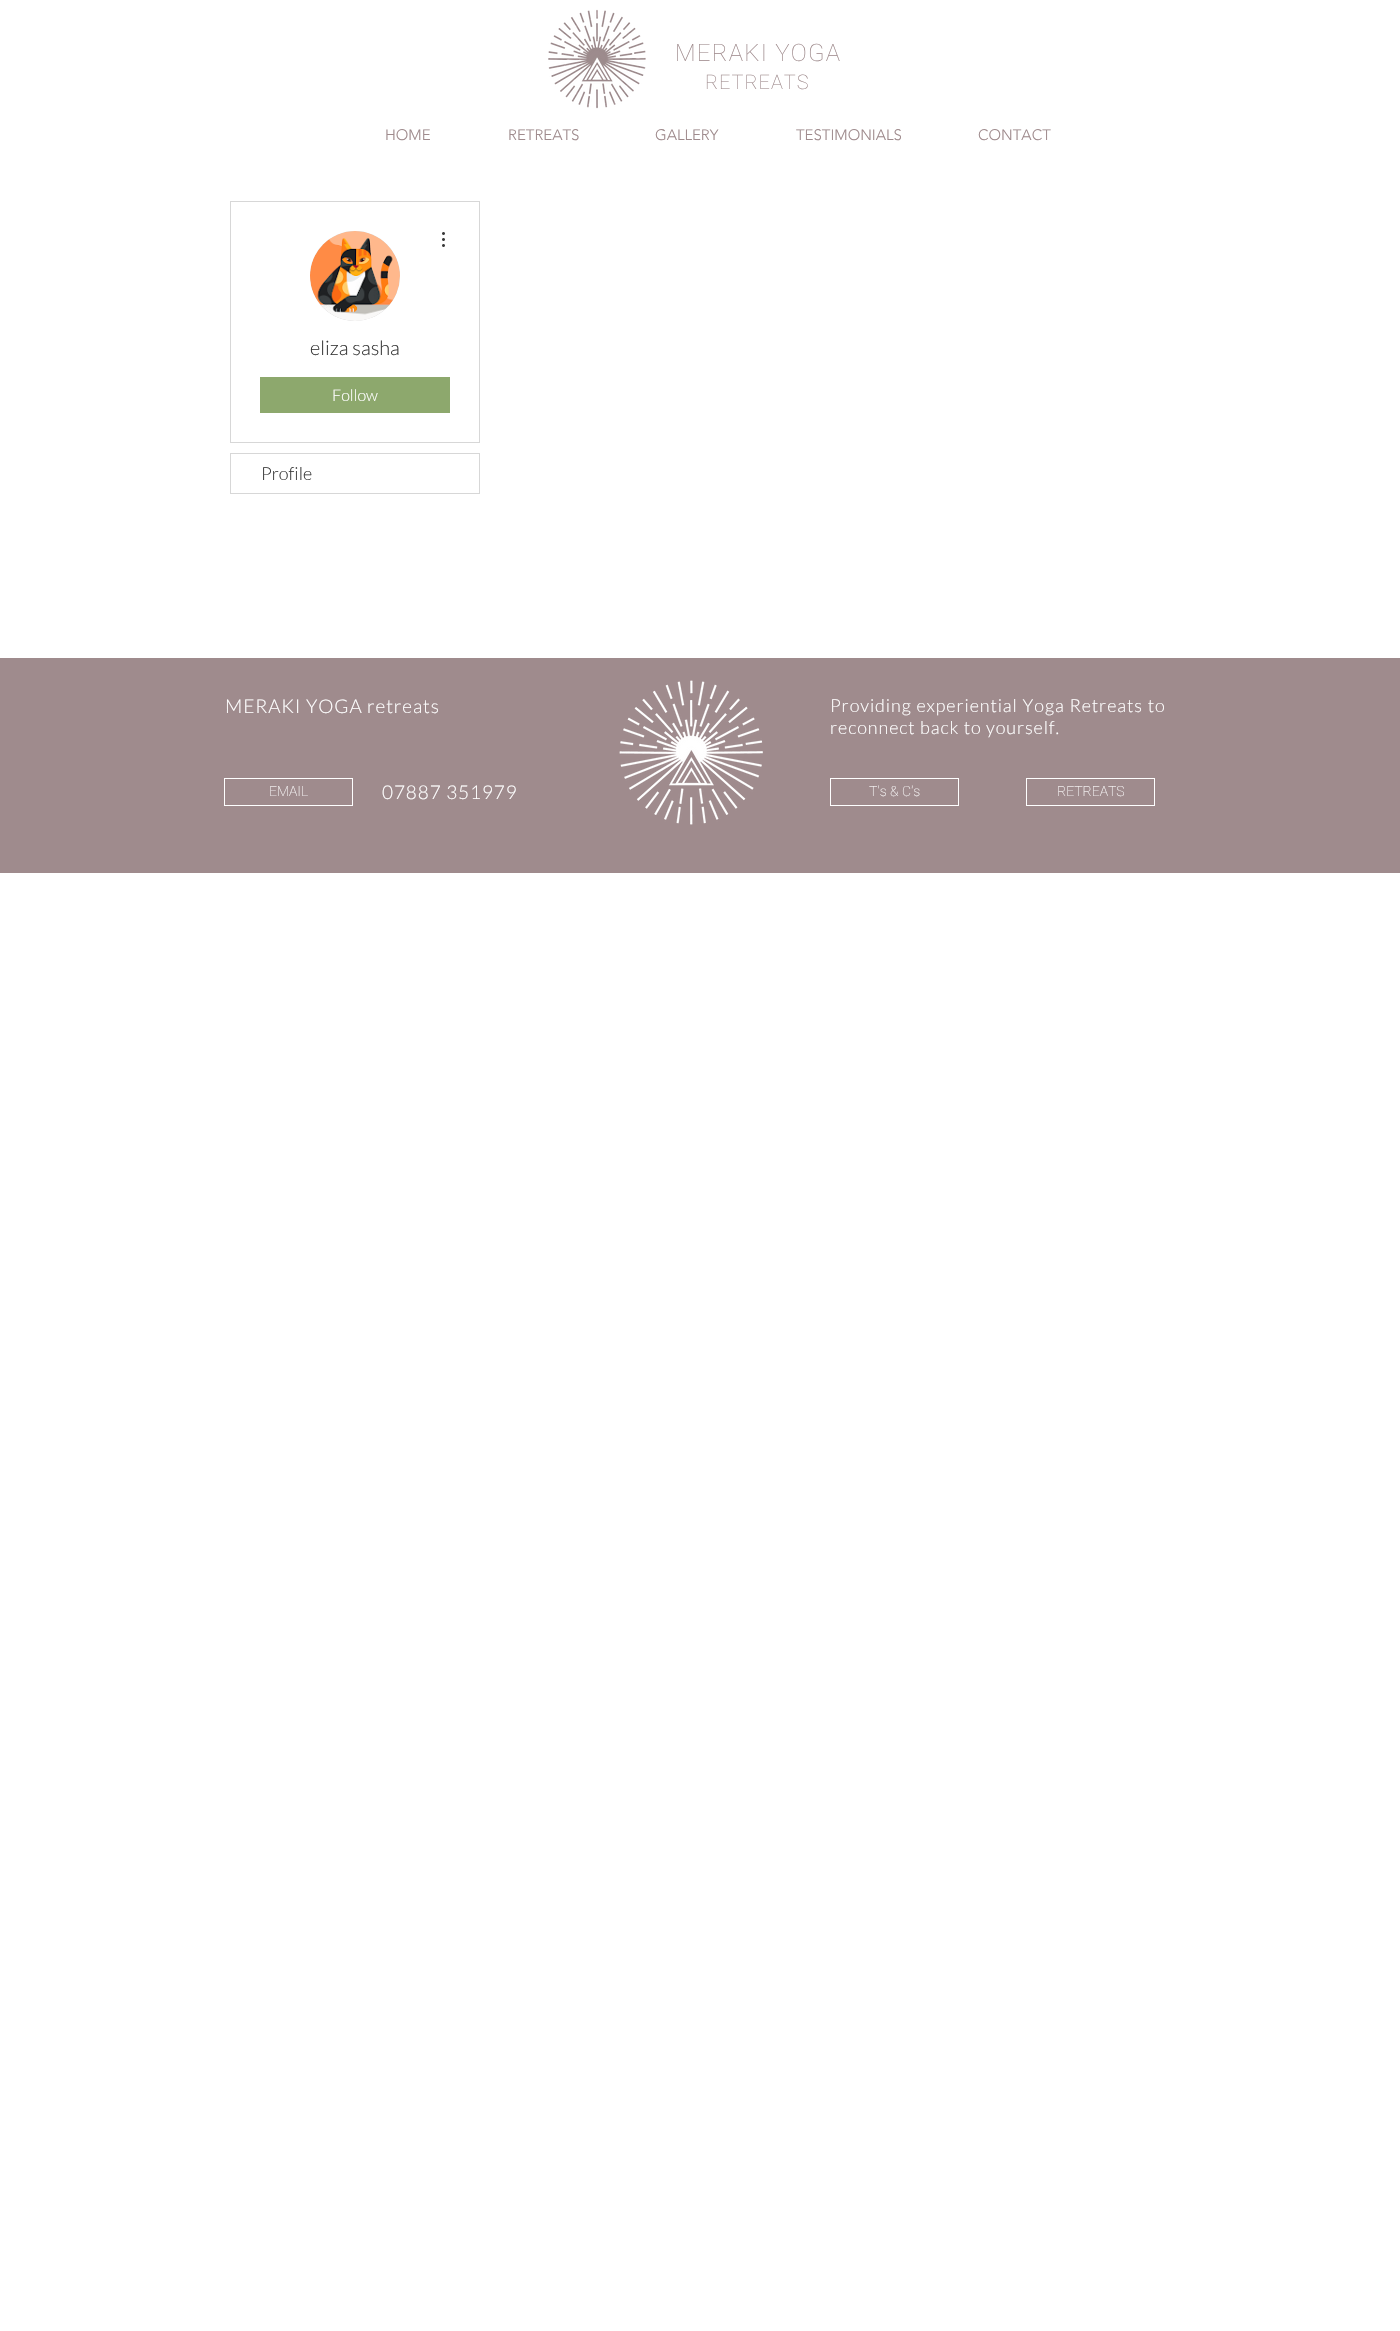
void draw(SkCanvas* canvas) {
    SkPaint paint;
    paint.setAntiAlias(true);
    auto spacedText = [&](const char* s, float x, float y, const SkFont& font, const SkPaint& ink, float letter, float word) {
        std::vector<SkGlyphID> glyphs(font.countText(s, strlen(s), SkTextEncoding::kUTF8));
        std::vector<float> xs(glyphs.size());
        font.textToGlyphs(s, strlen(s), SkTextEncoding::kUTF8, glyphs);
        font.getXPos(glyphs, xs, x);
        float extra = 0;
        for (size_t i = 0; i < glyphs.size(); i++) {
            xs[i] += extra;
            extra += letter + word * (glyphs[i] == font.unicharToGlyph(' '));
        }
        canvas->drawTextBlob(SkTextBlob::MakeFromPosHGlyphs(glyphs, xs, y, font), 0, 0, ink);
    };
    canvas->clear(0xFFFFFFFF);
    canvas->drawImageRect(SkImages::DeferredFromEncodedData(SkData::MakeFromFileName("img1.png")), SkRect::MakeXYWH(548, 9, 98, 100), SkSamplingOptions());
    SkFont font1(fontMgr->matchFamilyStyle("Roboto", SkFontStyle(100, SkFontStyle::kNormal_Width, SkFontStyle::kUpright_Slant)), 24);
    font1.setSubpixel(true);
    paint.setColor(0xFF9F8B8D);
    spacedText("MERAKI YOGA", 675, 61, font1, paint, 1.25f, 0);
    SkFont font2(fontMgr->matchFamilyStyle("Roboto", SkFontStyle(100, SkFontStyle::kNormal_Width, SkFontStyle::kUpright_Slant)), 20);
    font2.setSubpixel(true);
    spacedText("RETREATS", 705, 89, font2, paint, 1, 0);
    SkFont font3(fontMgr->matchFamilyStyle("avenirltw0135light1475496", SkFontStyle(300, SkFontStyle::kNormal_Width, SkFontStyle::kUpright_Slant)), 15);
    font3.setSubpixel(true);
    canvas->drawString("HOME", 385, 140, font3, paint);
    canvas->drawString("RETREATS", 508, 140, font3, paint);
    canvas->drawString("GALLERY", 655, 140, font3, paint);
    canvas->drawString("TESTIMONIALS", 796, 140, font3, paint);
    canvas->drawString("CONTACT", 978, 140, font3, paint);
    paint.setStyle(SkPaint::kStroke_Style);
    paint.setStrokeWidth(1);
    paint.setColor(0xFFD7D7D7);
    canvas->drawRect(SkRect::MakeXYWH(230.5f, 201.5f, 249, 241), paint);
    paint.setStyle(SkPaint::kFill_Style);
    paint.setColor(0xFFD8D8D8);
    canvas->drawCircle(355, 276, 45, paint);
    canvas->drawImageRect(SkImages::DeferredFromEncodedData(SkData::MakeFromFileName("img2.png")), SkRect::MakeXYWH(310, 231, 90, 90), SkSamplingOptions());
    canvas->drawImageRect(SkImages::DeferredFromEncodedData(SkData::MakeFromFileName("img3.png")), SkRect::MakeXYWH(442, 232, 3, 15), SkSamplingOptions());
    SkFont font4(fontMgr->matchFamilyStyle("Lato", SkFontStyle(300, SkFontStyle::kNormal_Width, SkFontStyle::kUpright_Slant)), 20);
    font4.setSubpixel(true);
    paint.setColor(0xFF383838);
    canvas->drawString("eliza sasha", 310, 355, font4, paint);
    paint.setColor(0xFF8DA86D);
    canvas->drawRect(SkRect::MakeXYWH(260, 377, 190, 36), paint);
    SkFont font5(fontMgr->matchFamilyStyle("Lato", SkFontStyle(300, SkFontStyle::kNormal_Width, SkFontStyle::kUpright_Slant)), 16);
    font5.setSubpixel(true);
    paint.setColor(0xFFFFFFFF);
    canvas->drawString("Follow", 332, 401, font5, paint);
    paint.setStyle(SkPaint::kStroke_Style);
    paint.setColor(0xFFD7D7D7);
    canvas->drawRect(SkRect::MakeXYWH(230.5f, 453.5f, 249, 40), paint);
    SkFont font6(fontMgr->matchFamilyStyle("Lato", SkFontStyle(300, SkFontStyle::kNormal_Width, SkFontStyle::kUpright_Slant)), 18);
    font6.setSubpixel(true);
    paint.setStyle(SkPaint::kFill_Style);
    paint.setColor(0xFF383838);
    canvas->drawString("Profile", 261, 480, font6, paint);
    paint.setColor(0xFF9F8B8D);
    canvas->drawRect(SkRect::MakeXYWH(0, 658, 1400, 215), paint);
    SkFont font7(fontMgr->matchFamilyStyle("Lato", SkFontStyle(300, SkFontStyle::kNormal_Width, SkFontStyle::kUpright_Slant)), 19);
    font7.setSubpixel(true);
    paint.setColor(0xFFFFFFFF);
    spacedText("MERAKI YOGA retreats", 225, 713, font7, paint, 0.9f, 0);
    canvas->drawImageRect(SkImages::DeferredFromEncodedData(SkData::MakeFromFileName("img4.png")), SkRect::MakeXYWH(619, 680, 144, 145), SkSamplingOptions());
    spacedText("Providing experiential Yoga Retreats to", 830, 712, font6, paint, 0.9f, 0.5f);
    spacedText("reconnect back to yourself.", 830, 734, font6, paint, 0.9f, 0);
    paint.setStyle(SkPaint::kStroke_Style);
    canvas->drawRect(SkRect::MakeXYWH(224.5f, 778.5f, 128, 27), paint);
    SkFont font8(fontMgr->matchFamilyStyle("Roboto", SkFontStyle(100, SkFontStyle::kNormal_Width, SkFontStyle::kUpright_Slant)), 14);
    font8.setSubpixel(true);
    paint.setStyle(SkPaint::kFill_Style);
    canvas->drawString("EMAIL", 269, 796, font8, paint);
    spacedText("07887 351979", 382, 799, font7, paint, 0.9f, 0);
    paint.setStyle(SkPaint::kStroke_Style);
    canvas->drawRect(SkRect::MakeXYWH(830.5f, 778.5f, 128, 27), paint);
    paint.setStyle(SkPaint::kFill_Style);
    canvas->drawString("T's & C's", 869, 796, font8, paint);
    paint.setStyle(SkPaint::kStroke_Style);
    canvas->drawRect(SkRect::MakeXYWH(1026.5f, 778.5f, 128, 27), paint);
    paint.setStyle(SkPaint::kFill_Style);
    canvas->drawString("RETREATS", 1057, 796, font8, paint);
}
